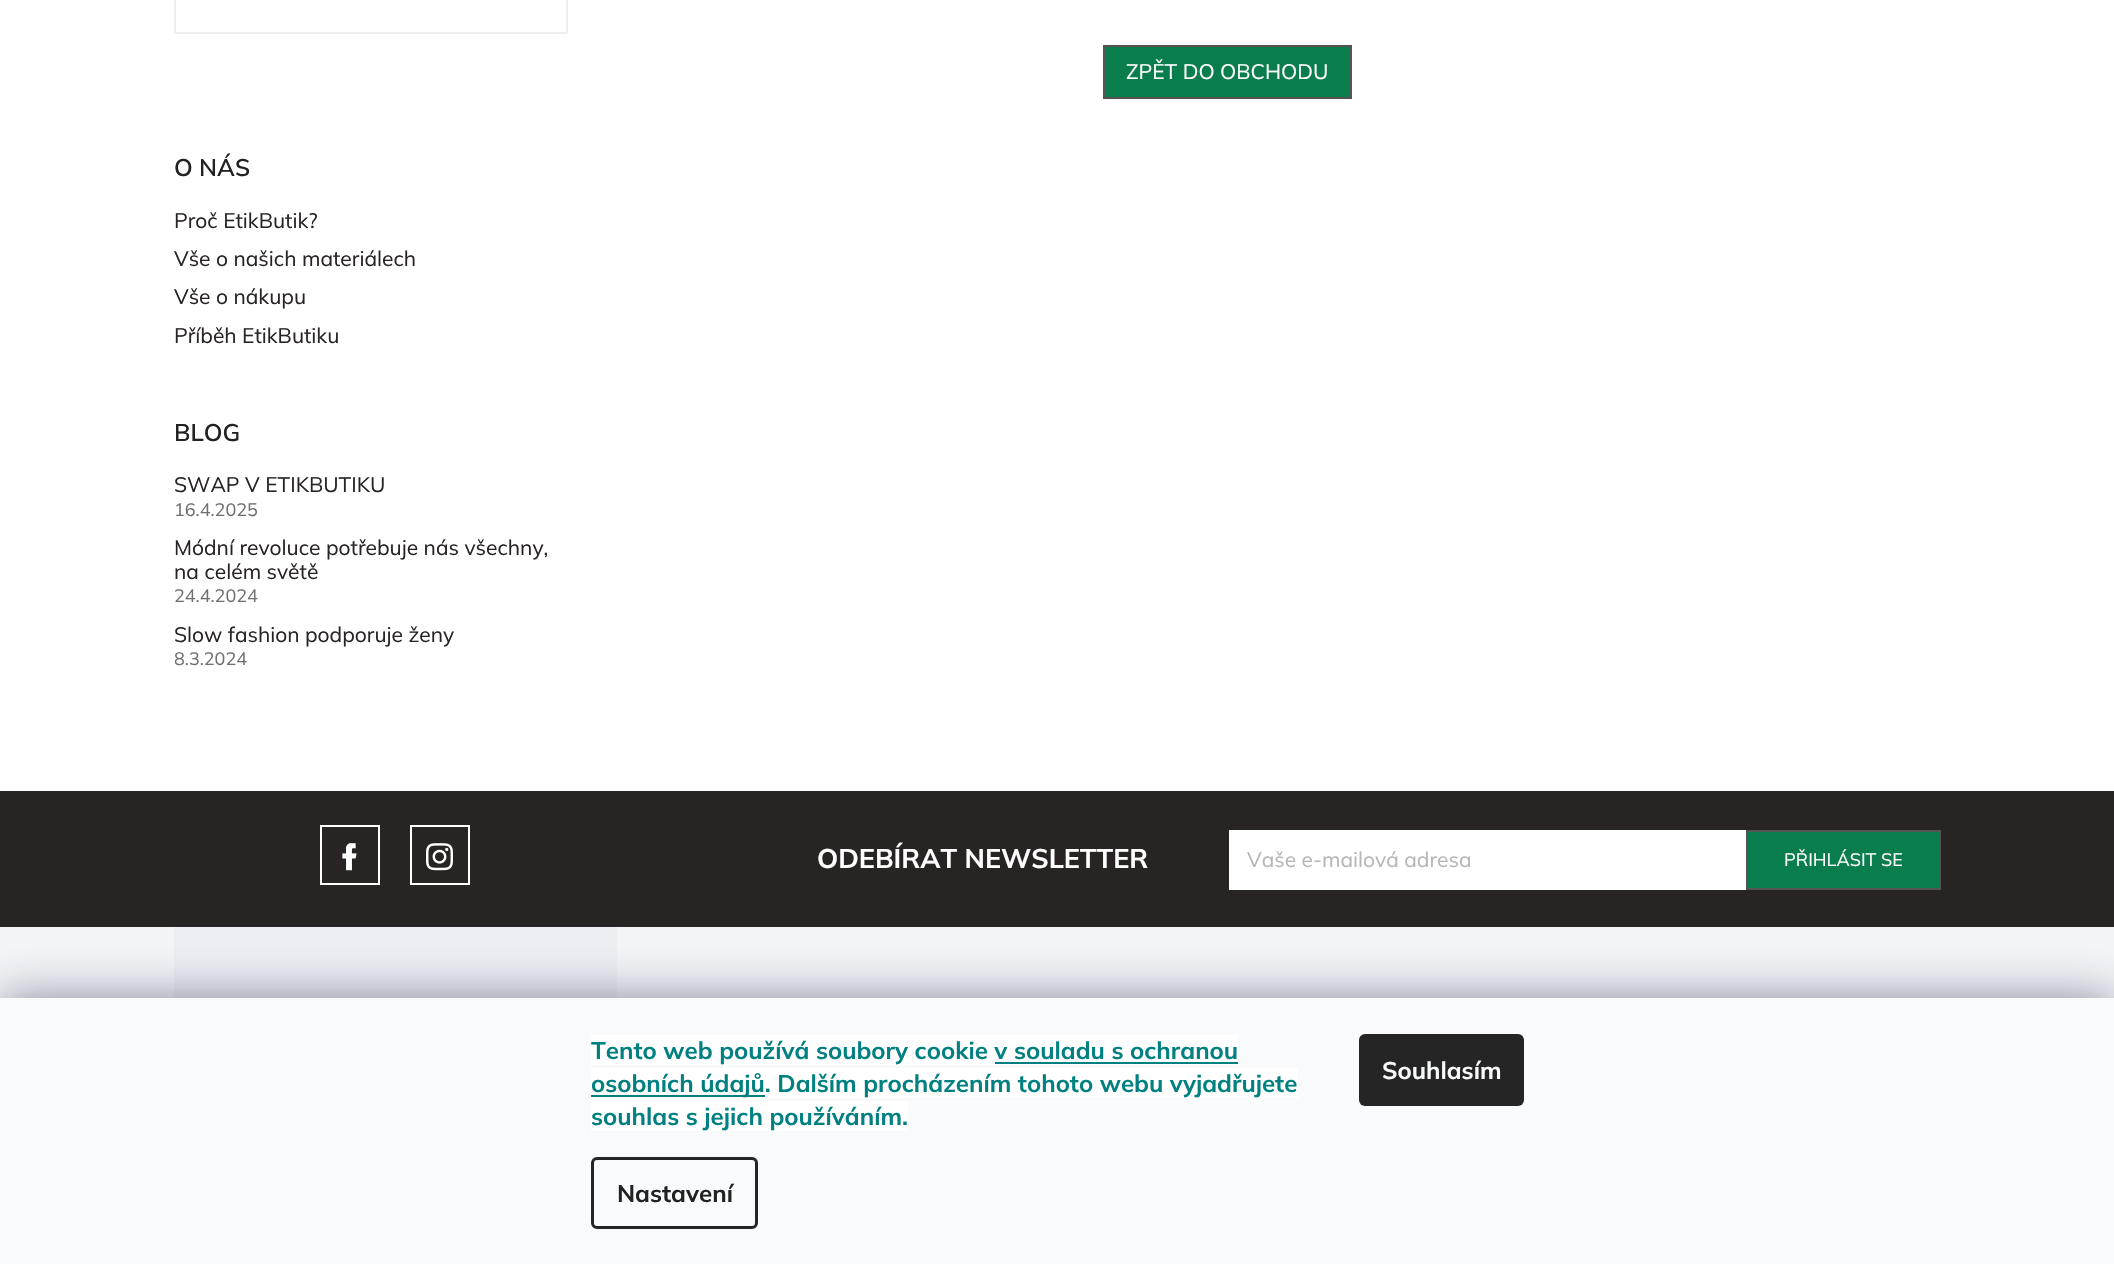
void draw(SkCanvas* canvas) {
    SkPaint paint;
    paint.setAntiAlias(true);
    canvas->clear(0xFFFFFFFF);
    paint.setColor(0xFF097D4C);
    canvas->drawRect(SkRect::MakeXYWH(1104, 46, 247, 52), paint);
    paint.setStyle(SkPaint::kStroke_Style);
    paint.setStrokeWidth(2);
    paint.setColor(0xFF545454);
    canvas->drawRect(SkRect::MakeXYWH(1104, 46, 247, 52), paint);
    SkFont font1(fontMgr->matchFamilyStyle("Mulish", SkFontStyle::Normal()), 21);
    font1.setSubpixel(true);
    paint.setStyle(SkPaint::kFill_Style);
    paint.setColor(0xFFFFFFFF);
    canvas->drawString("ZPĚT DO OBCHODU", 1126, 79, font1, paint);
    paint.setColor(0xFFEEEEEE);
    canvas->drawRect(SkRect::MakeXYWH(566, 0, 2, 33), paint);
    canvas->drawRect(SkRect::MakeXYWH(174, 32, 393, 2), paint);
    canvas->drawRect(SkRect::MakeXYWH(174, 0, 2, 33), paint);
    SkFont font2(fontMgr->matchFamilyStyle("Mulish", SkFontStyle(600, SkFontStyle::kNormal_Width, SkFontStyle::kUpright_Slant)), 24);
    font2.setSubpixel(true);
    paint.setColor(0xFF222222);
    canvas->drawString("O NÁS", 174, 176, font2, paint);
    paint.setColor(0xFF282424);
    canvas->drawString("Proč EtikButik?", 174, 228, font1, paint);
    canvas->drawString("Vše o našich materiálech", 174, 266, font1, paint);
    canvas->drawString("Vše o nákupu", 174, 304, font1, paint);
    canvas->drawString("Příběh EtikButiku", 174, 343, font1, paint);
    paint.setColor(0xFF222222);
    canvas->drawString("BLOG", 174, 441, font2, paint);
    paint.setColor(0xFF282424);
    canvas->drawString("SWAP V ETIKBUTIKU", 174, 492, font1, paint);
    SkFont font3(fontMgr->matchFamilyStyle("Mulish", SkFontStyle::Normal()), 18);
    font3.setSubpixel(true);
    paint.setColor(0xFF707070);
    canvas->drawString("16.4.2025", 174, 516, font3, paint);
    paint.setColor(0xFF282424);
    canvas->drawString("Módní revoluce potřebuje nás všechny,", 174, 555, font1, paint);
    canvas->drawString("na celém světě", 174, 579, font1, paint);
    paint.setColor(0xFF707070);
    canvas->drawString("24.4.2024", 174, 602, font3, paint);
    paint.setColor(0xFF282424);
    canvas->drawString("Slow fashion podporuje ženy", 174, 642, font1, paint);
    paint.setColor(0xFF707070);
    canvas->drawString("8.3.2024", 174, 665, font3, paint);
    paint.setColor(0xFFF3F4F8);
    canvas->drawRect(SkRect::MakeXYWH(0, 927, 2114, 71), paint);
    paint.setColor(0xFF282424);
    canvas->drawRect(SkRect::MakeXYWH(0, 791, 2114, 136), paint);
    paint.setStyle(SkPaint::kStroke_Style);
    paint.setColor(0xFFFFFFFF);
    canvas->drawRect(SkRect::MakeXYWH(321, 826, 58, 58), paint);
    canvas->drawImageRect(SkImages::DeferredFromEncodedData(SkData::MakeFromFileName("img1.png")), SkRect::MakeXYWH(342, 843, 15, 28), SkSamplingOptions());
    canvas->drawRect(SkRect::MakeXYWH(411, 826, 58, 58), paint);
    canvas->drawImageRect(SkImages::DeferredFromEncodedData(SkData::MakeFromFileName("img2.png")), SkRect::MakeXYWH(426, 843, 27, 28), SkSamplingOptions());
    SkFont font4(fontMgr->matchFamilyStyle("Mulish", SkFontStyle::Bold()), 27);
    font4.setSubpixel(true);
    paint.setStyle(SkPaint::kFill_Style);
    canvas->drawString("ODEBÍRAT NEWSLETTER", 817, 868, font4, paint);
    canvas->drawRect(SkRect::MakeXYWH(1229, 830, 517, 60), paint);
    paint.setColor(0xFFB6B6B6);
    canvas->drawString("Vaše e-mailová adresa", 1247, 867, font1, paint);
    paint.setColor(0xFF097D4C);
    canvas->drawRect(SkRect::MakeXYWH(1747, 831, 193, 58), paint);
    paint.setStyle(SkPaint::kStroke_Style);
    paint.setColor(0xFF545454);
    canvas->drawRect(SkRect::MakeXYWH(1747, 831, 193, 58), paint);
    paint.setStyle(SkPaint::kFill_Style);
    paint.setColor(0xFFFFFFFF);
    canvas->drawString("PŘIHLÁSIT SE", 1784, 866, font3, paint);
    paint.setColor(0xFFECEEF4);
    canvas->drawRect(SkRect::MakeXYWH(174, 927, 443, 71), paint);
    paint.setColor(0x801B1939);
    paint.setMaskFilter(SkMaskFilter::MakeBlur(kNormal_SkBlurStyle, 22.5f));
    canvas->drawRect(SkRect::MakeXYWH(0, 998, 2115, 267), paint);
    paint.setMaskFilter(nullptr);
    paint.setColor(0xFFF8FAFB);
    canvas->drawRect(SkRect::MakeXYWH(0, 998, 2114, 266), paint);
    paint.setColor(0xFFFFFFFF);
    canvas->drawRect(SkRect::MakeXYWH(591, 1035, 647, 30), paint);
    SkFont font5(fontMgr->matchFamilyStyle("Mulish", SkFontStyle::Bold()), 24);
    font5.setSubpixel(true);
    paint.setColor(0xFF008080);
    canvas->drawString("Tento web používá soubory cookie v souladu s ochranou", 591, 1059, font5, paint);
    canvas->drawRect(SkRect::MakeXYWH(995, 1062, 243, 2), paint);
    paint.setColor(0xFFFFFFFF);
    canvas->drawRect(SkRect::MakeXYWH(591, 1068, 707, 30), paint);
    paint.setColor(0xFF008080);
    canvas->drawRect(SkRect::MakeXYWH(591, 1095, 174, 2), paint);
    canvas->drawString("osobních údajů. Dalším procházením tohoto webu vyjadřujete", 591, 1092, font5, paint);
    paint.setColor(0xFFFFFFFF);
    canvas->drawRect(SkRect::MakeXYWH(591, 1101, 317, 30), paint);
    paint.setColor(0xFF008080);
    canvas->drawString("souhlas s jejich používáním.", 591, 1125, font5, paint);
    paint.setStyle(SkPaint::kStroke_Style);
    paint.setStrokeWidth(3);
    paint.setColor(0xFF252525);
    canvas->drawRoundRect(SkRect::MakeXYWH(592.5f, 1158.5f, 164, 69), 4.5f, 4.5f, paint);
    paint.setStyle(SkPaint::kFill_Style);
    paint.setColor(0xFF222222);
    canvas->drawString("Nastavení", 617, 1202, font5, paint);
    paint.setColor(0xFF252525);
    canvas->drawRoundRect(SkRect::MakeXYWH(1359, 1034, 165, 72), 6, 6, paint);
    paint.setColor(0xFFF8FAFB);
    canvas->drawString("Souhlasím", 1382, 1079, font5, paint);
}
